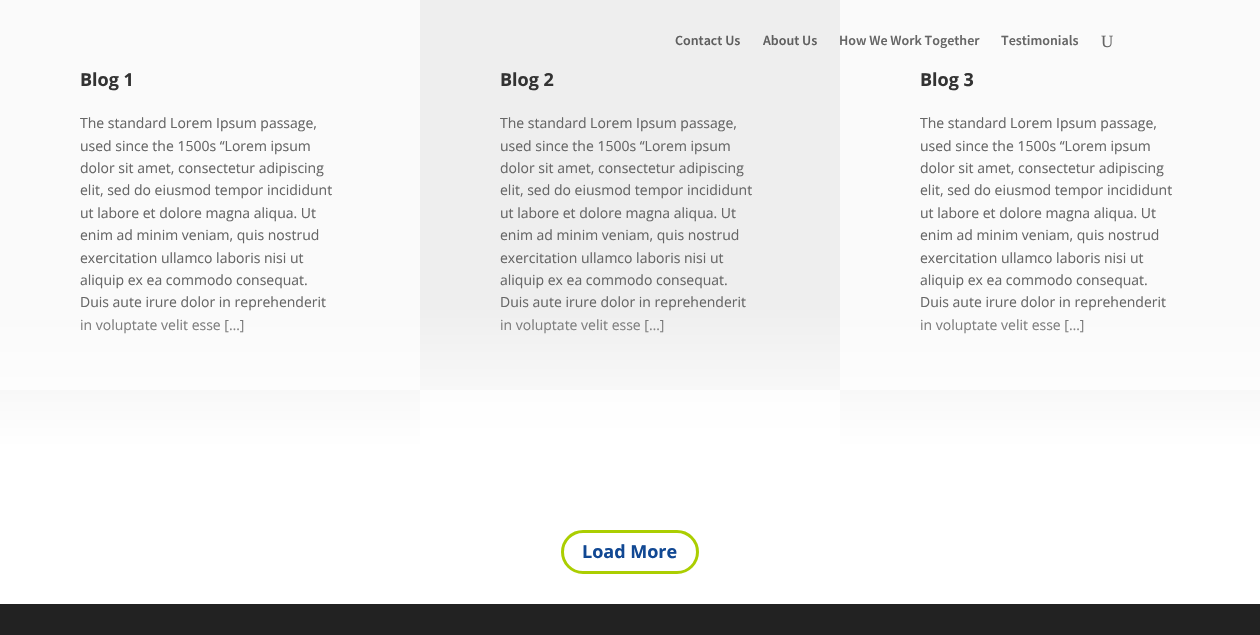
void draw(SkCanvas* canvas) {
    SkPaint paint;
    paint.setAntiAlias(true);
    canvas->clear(0xFF222222);
    paint.setColor(0xFFEEEEEE);
    canvas->drawRect(SkRect::MakeXYWH(420, 0, 420, 390), paint);
    SkFont font1(fontMgr->matchFamilyStyle("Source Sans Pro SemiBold", SkFontStyle(600, SkFontStyle::kNormal_Width, SkFontStyle::kUpright_Slant)), 14);
    font1.setSubpixel(true);
    paint.setColor(0xFF5F5F5F);
    canvas->drawString("Contact Us", 675, 45, font1, paint);
    canvas->drawString("About Us", 763, 45, font1, paint);
    paint.setColor(0xFFFAFAFA);
    canvas->drawRect(SkRect::MakeXYWH(840, 0, 420, 390), paint);
    paint.setColor(0xFF666666);
    canvas->drawString("How We Work Together", 839, 45, font1, paint);
    canvas->drawString("Testimonials", 1001, 45, font1, paint);
    SkFont font2(fontMgr->matchFamilyStyle("Liberation Serif", SkFontStyle::Normal()), 17);
    font2.setSubpixel(true);
    canvas->drawString("U", 1101, 47, font2, paint);
    paint.setColor(0xFFFAFAFA);
    canvas->drawRect(SkRect::MakeXYWH(0, 0, 420, 390), paint);
    SkFont font3(fontMgr->matchFamilyStyle("Open Sans", SkFontStyle::Bold()), 18);
    font3.setSubpixel(true);
    paint.setColor(0xFF333333);
    canvas->drawString("Blog 1", 80, 86, font3, paint);
    SkFont font4(fontMgr->matchFamilyStyle("Open Sans", SkFontStyle::Normal()), 14);
    font4.setSubpixel(true);
    paint.setColor(0xFF666666);
    canvas->drawString("The standard Lorem Ipsum passage,", 80, 128, font4, paint);
    canvas->drawString("used since the 1500s “Lorem ipsum", 80, 151, font4, paint);
    canvas->drawString("dolor sit amet, consectetur adipiscing", 80, 173, font4, paint);
    canvas->drawString("elit, sed do eiusmod tempor incididunt", 80, 195, font4, paint);
    canvas->drawString("ut labore et dolore magna aliqua. Ut", 80, 218, font4, paint);
    canvas->drawString("enim ad minim veniam, quis nostrud", 80, 240, font4, paint);
    canvas->drawString("exercitation ullamco laboris nisi ut", 80, 263, font4, paint);
    canvas->drawString("aliquip ex ea commodo consequat.", 80, 285, font4, paint);
    canvas->drawString("Duis aute irure dolor in reprehenderit", 80, 307, font4, paint);
    canvas->drawString("in voluptate velit esse […]", 80, 330, font4, paint);
    paint.setColor(0xFF333333);
    canvas->drawString("Blog 2", 500, 86, font3, paint);
    paint.setColor(0xFF666666);
    canvas->drawString("The standard Lorem Ipsum passage,", 500, 128, font4, paint);
    canvas->drawString("used since the 1500s “Lorem ipsum", 500, 151, font4, paint);
    canvas->drawString("dolor sit amet, consectetur adipiscing", 500, 173, font4, paint);
    canvas->drawString("elit, sed do eiusmod tempor incididunt", 500, 195, font4, paint);
    canvas->drawString("ut labore et dolore magna aliqua. Ut", 500, 218, font4, paint);
    canvas->drawString("enim ad minim veniam, quis nostrud", 500, 240, font4, paint);
    canvas->drawString("exercitation ullamco laboris nisi ut", 500, 263, font4, paint);
    canvas->drawString("aliquip ex ea commodo consequat.", 500, 285, font4, paint);
    canvas->drawString("Duis aute irure dolor in reprehenderit", 500, 307, font4, paint);
    canvas->drawString("in voluptate velit esse […]", 500, 330, font4, paint);
    paint.setColor(0xFF333333);
    canvas->drawString("Blog 3", 920, 86, font3, paint);
    paint.setColor(0xFF666666);
    canvas->drawString("The standard Lorem Ipsum passage,", 920, 128, font4, paint);
    canvas->drawString("used since the 1500s “Lorem ipsum", 920, 151, font4, paint);
    canvas->drawString("dolor sit amet, consectetur adipiscing", 920, 173, font4, paint);
    canvas->drawString("elit, sed do eiusmod tempor incididunt", 920, 195, font4, paint);
    canvas->drawString("ut labore et dolore magna aliqua. Ut", 920, 218, font4, paint);
    canvas->drawString("enim ad minim veniam, quis nostrud", 920, 240, font4, paint);
    canvas->drawString("exercitation ullamco laboris nisi ut", 920, 263, font4, paint);
    canvas->drawString("aliquip ex ea commodo consequat.", 920, 285, font4, paint);
    canvas->drawString("Duis aute irure dolor in reprehenderit", 920, 307, font4, paint);
    canvas->drawString("in voluptate velit esse […]", 920, 330, font4, paint);
    paint.setColor(0xFFEEEEEE);
    canvas->drawRect(SkRect::MakeXYWH(0, 390, 420, 62), paint);
    paint.setColor(0xFFFAFAFA);
    canvas->drawRect(SkRect::MakeXYWH(420, 390, 420, 62), paint);
    paint.setColor(0xFFEEEEEE);
    canvas->drawRect(SkRect::MakeXYWH(840, 390, 420, 62), paint);
    {
        const SkColor colors[] = {0x00FFFFFF, 0xFFFFFFFF};
        const float stops[] = {0, 0.5f};
        const SkPoint ends[] = {{630, 302}, {630, 604}};
        paint.setShader(SkGradientShader::MakeLinear(ends, colors, stops, 2, SkTileMode::kClamp));
        paint.setAlpha(255);
    }
    canvas->drawRect(SkRect::MakeXYWH(0, 305, 1260, 299), paint);
    paint.setStyle(SkPaint::kStroke_Style);
    paint.setStrokeWidth(3);
    paint.setShader(nullptr);
    paint.setColor(0xFFABCE01);
    canvas->drawRoundRect(SkRect::MakeXYWH(562.5f, 531.5f, 135, 41), 20.5f, 20.5f, paint);
    paint.setStyle(SkPaint::kFill_Style);
    paint.setColor(0xFF114893);
    canvas->drawString("Load More", 582, 558, font3, paint);
}
